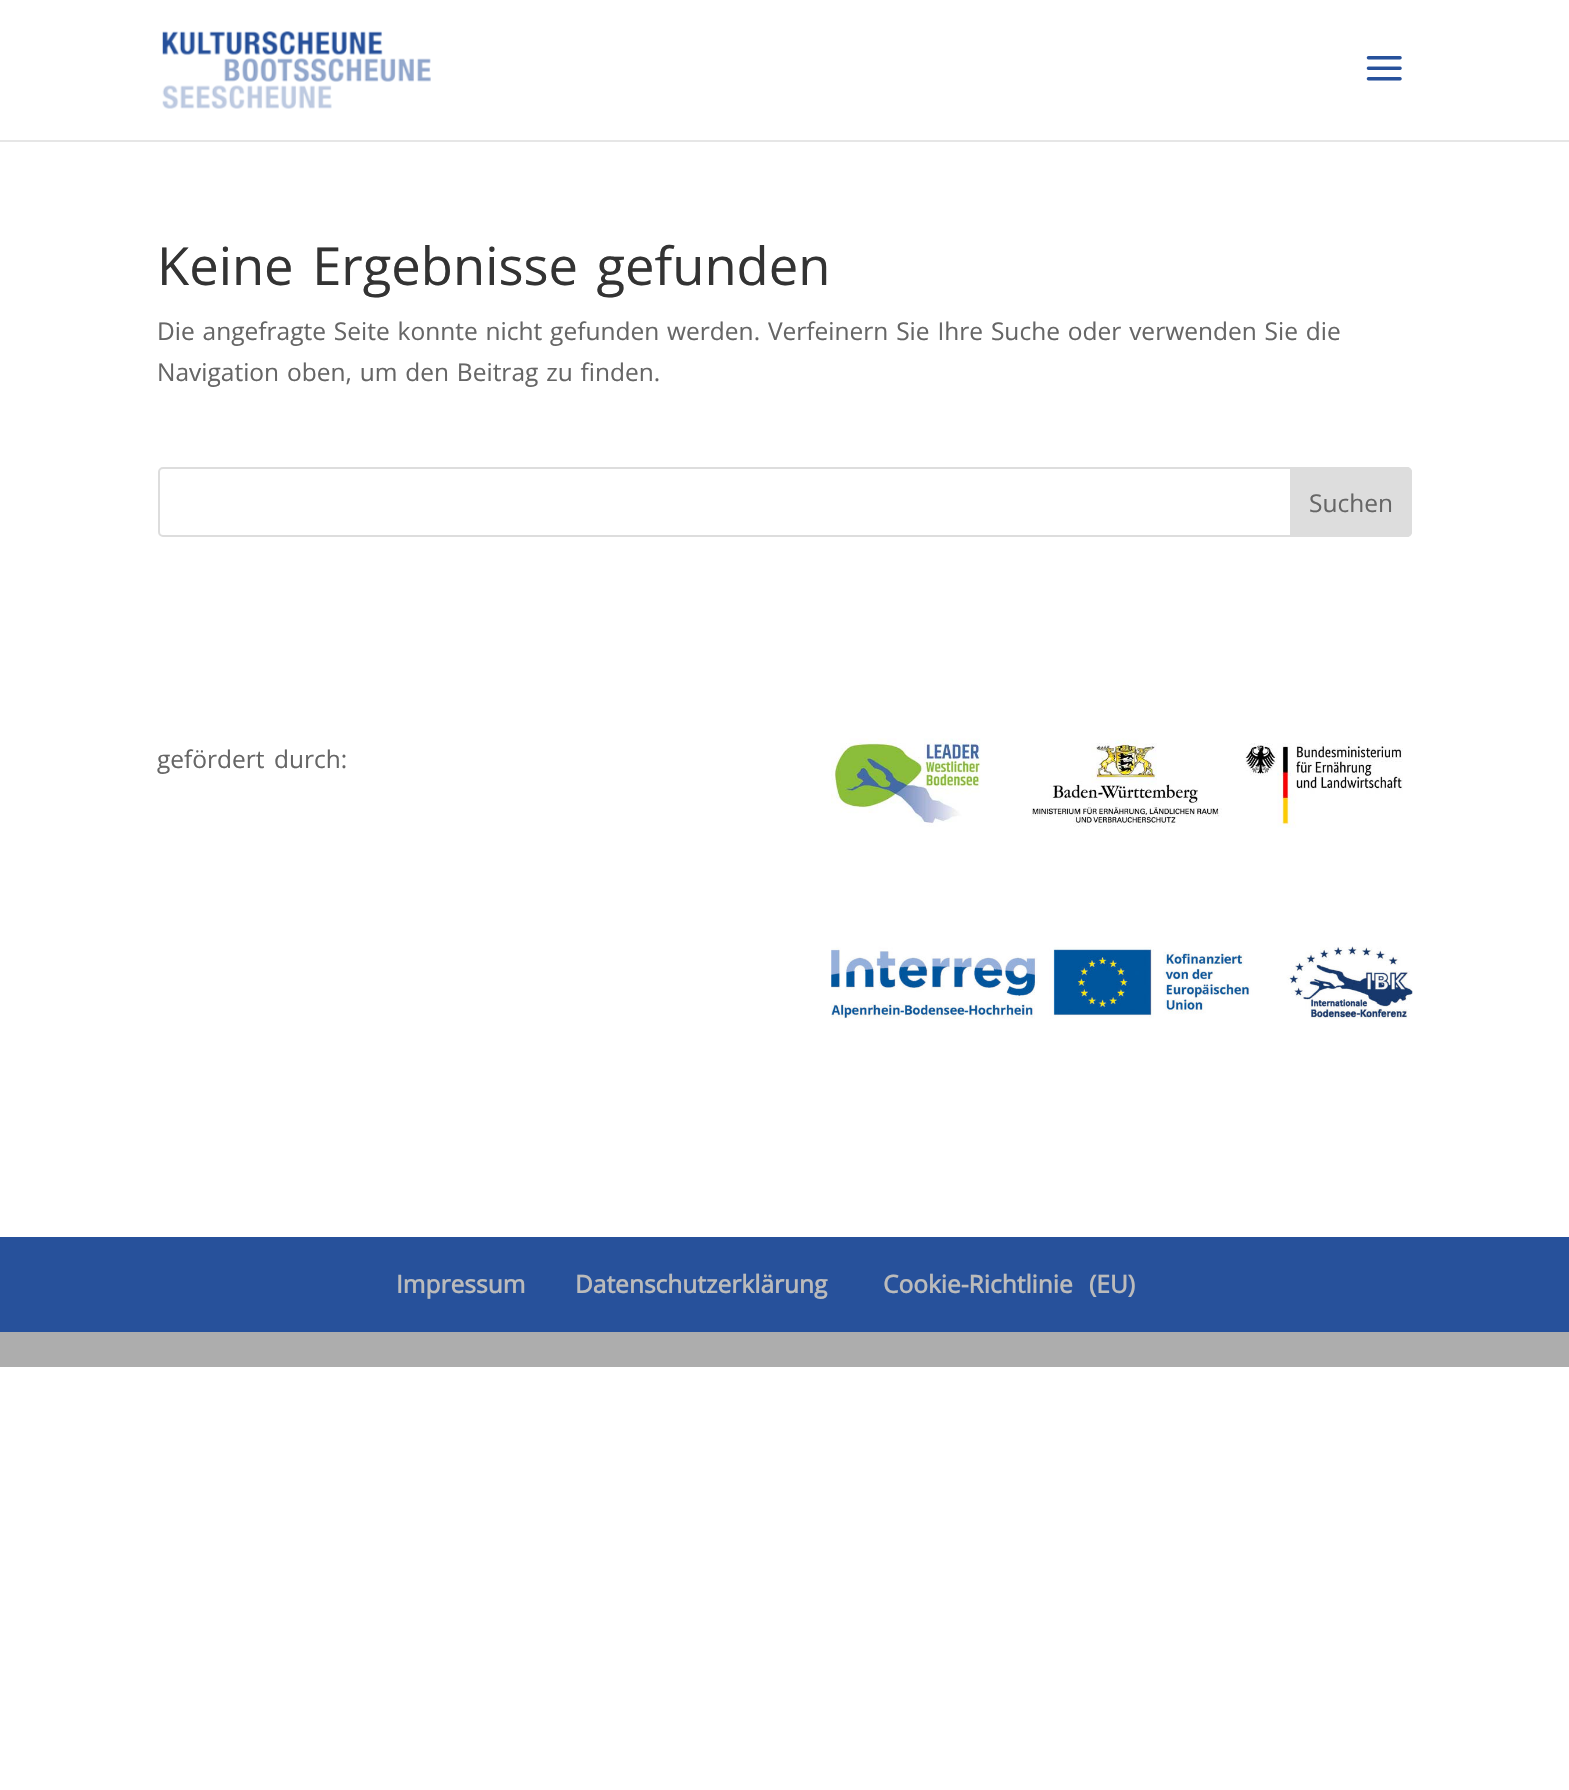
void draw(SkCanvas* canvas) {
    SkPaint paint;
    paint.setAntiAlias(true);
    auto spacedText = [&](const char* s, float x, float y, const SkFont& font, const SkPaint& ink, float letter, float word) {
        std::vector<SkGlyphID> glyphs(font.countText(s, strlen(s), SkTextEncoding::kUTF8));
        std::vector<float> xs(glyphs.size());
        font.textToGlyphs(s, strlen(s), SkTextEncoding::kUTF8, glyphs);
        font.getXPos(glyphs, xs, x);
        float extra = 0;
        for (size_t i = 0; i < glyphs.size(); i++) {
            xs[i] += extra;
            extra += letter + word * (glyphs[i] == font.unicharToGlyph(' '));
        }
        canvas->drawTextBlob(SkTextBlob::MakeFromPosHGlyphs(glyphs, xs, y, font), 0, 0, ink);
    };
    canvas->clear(0xFFFFFFFF);
    paint.setColor(0xFFE6E6E6);
    canvas->drawPath(SkPathBuilder().moveTo(0, 140).lineTo(0, 142).lineTo(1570, 142).lineTo(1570, 2).lineTo(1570, 140).close().detach(), paint);
    canvas->drawImageRect(SkImages::DeferredFromEncodedData(SkData::MakeFromFileName("img1.png")), SkRect::MakeXYWH(162, 31, 269, 78), SkSamplingOptions());
    canvas->drawImageRect(SkImages::DeferredFromEncodedData(SkData::MakeFromFileName("img2.png")), SkRect::MakeXYWH(1366, 56, 36, 25), SkSamplingOptions());
    SkFont font1(fontMgr->matchFamilyStyle("Open Sans", SkFontStyle::Normal()), 52.5f);
    font1.setSubpixel(true);
    paint.setColor(0xFF333333);
    spacedText("Keine Ergebnisse gefunden", 157, 285, font1, paint, 0, 5);
    SkFont font2(fontMgr->matchFamilyStyle("Open Sans", SkFontStyle::Normal()), 24.5f);
    font2.setSubpixel(true);
    paint.setColor(0xFF666666);
    spacedText("Die angefragte Seite konnte nicht gefunden werden. Verfeinern Sie Ihre Suche oder verwenden Sie die", 157, 340, font2, paint, 0, 1.5f);
    spacedText("Navigation oben, um den Beitrag zu finden.", 157, 381, font2, paint, 0, 1.5f);
    paint.setStyle(SkPaint::kStroke_Style);
    paint.setStrokeWidth(2);
    paint.setColor(0xFFDDDDDD);
    canvas->drawRoundRect(SkRect::MakeXYWH(159, 468, 1252, 68), 4, 4, paint);
    paint.setStyle(SkPaint::kFill_Style);
    canvas->drawPath(SkPathBuilder().moveTo(1291, 468).lineTo(1407, 468).cubicTo(1409, 468, 1411, 470, 1411, 472).lineTo(1411, 532).cubicTo(1411, 534, 1409, 536, 1407, 536).lineTo(1291, 536).close().detach(), paint);
    paint.setStyle(SkPaint::kStroke_Style);
    canvas->drawPath(SkPathBuilder().moveTo(1291, 468).lineTo(1407, 468).cubicTo(1409, 468, 1411, 470, 1411, 472).lineTo(1411, 532).cubicTo(1411, 534, 1409, 536, 1407, 536).lineTo(1291, 536).close().detach(), paint);
    paint.setStyle(SkPaint::kFill_Style);
    paint.setColor(0xFF666666);
    canvas->drawString("Suchen", 1309, 512, font2, paint);
    spacedText("gefördert durch:", 157, 768, font2, paint, 0, 3);
    canvas->drawImageRect(SkImages::DeferredFromEncodedData(SkData::MakeFromFileName("img3.png")), SkRect::MakeXYWH(831, 738, 572, 90), SkSamplingOptions());
    canvas->drawImageRect(SkImages::DeferredFromEncodedData(SkData::MakeFromFileName("img4.png")), SkRect::MakeXYWH(831, 946, 582, 73), SkSamplingOptions());
    paint.setColor(0xFF27519B);
    canvas->drawRect(SkRect::MakeXYWH(0, 1237, 1569, 95), paint);
    SkFont font3(fontMgr->matchFamilyStyle("Open Sans", SkFontStyle::Bold()), 24.5f);
    font3.setSubpixel(true);
    paint.setColor(0xFFBBBBBB);
    canvas->drawString("Impressum", 396, 1293, font3, paint);
    canvas->drawString("Datenschutzerklärung", 575, 1293, font3, paint);
    spacedText("Cookie-Richtlinie (EU)", 883, 1293, font3, paint, 0, 10);
    paint.setColor(0xFFADADAD);
    canvas->drawRect(SkRect::MakeXYWH(0, 1332, 1569, 35), paint);
}
